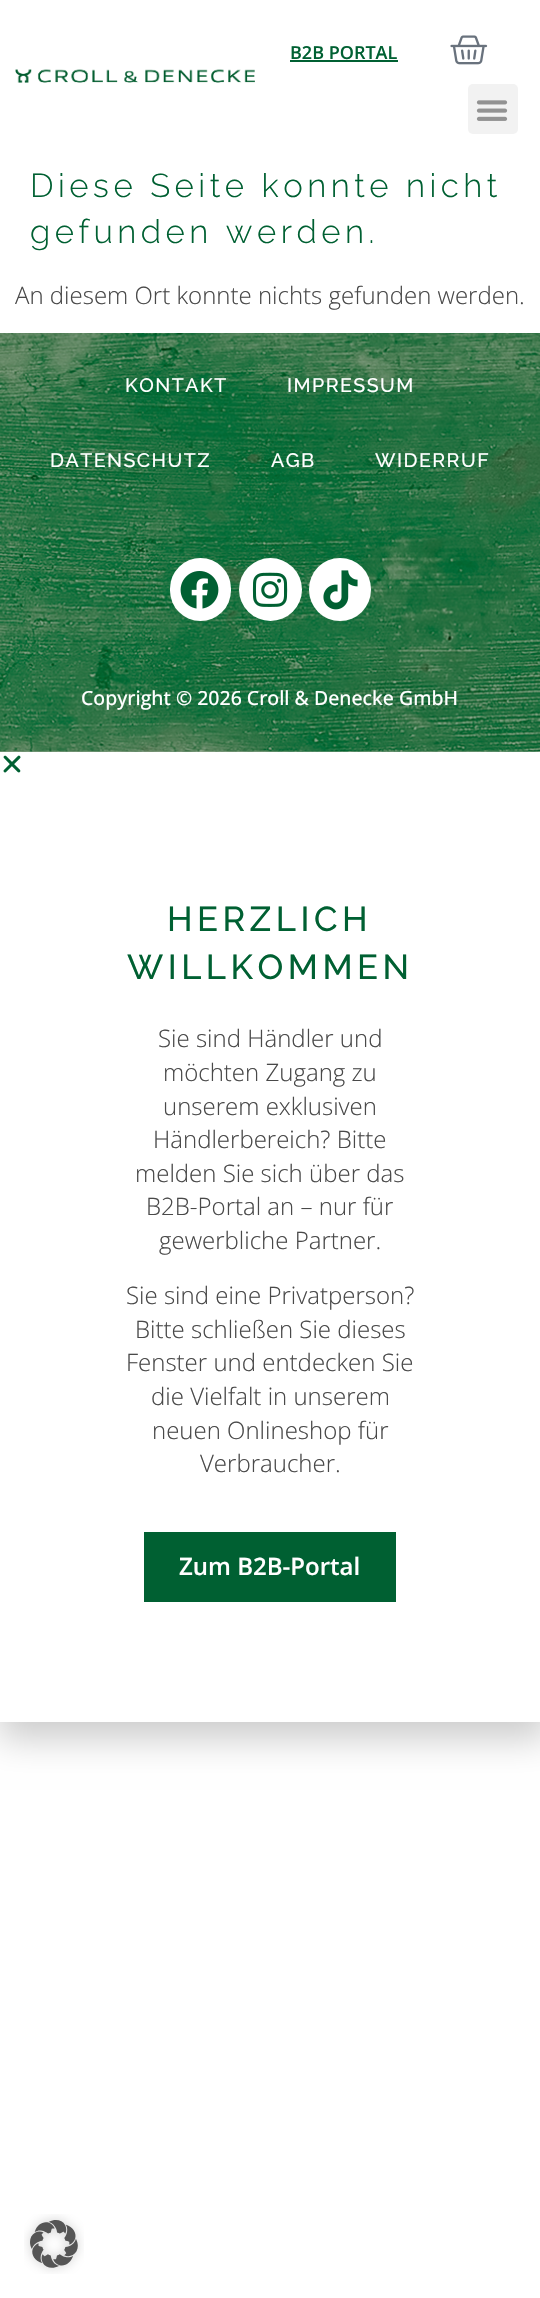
void draw(SkCanvas* canvas) {
    SkPaint paint;
    paint.setAntiAlias(true);
    auto spacedText = [&](const char* s, float x, float y, const SkFont& font, const SkPaint& ink, float letter, float word) {
        std::vector<SkGlyphID> glyphs(font.countText(s, strlen(s), SkTextEncoding::kUTF8));
        std::vector<float> xs(glyphs.size());
        font.textToGlyphs(s, strlen(s), SkTextEncoding::kUTF8, glyphs);
        font.getXPos(glyphs, xs, x);
        float extra = 0;
        for (size_t i = 0; i < glyphs.size(); i++) {
            xs[i] += extra;
            extra += letter + word * (glyphs[i] == font.unicharToGlyph(' '));
        }
        canvas->drawTextBlob(SkTextBlob::MakeFromPosHGlyphs(glyphs, xs, y, font), 0, 0, ink);
    };
    canvas->clear(0xFFFFFFFF);
    SkFont font1(fontMgr->matchFamilyStyle("Open Sans", SkFontStyle(600, SkFontStyle::kNormal_Width, SkFontStyle::kUpright_Slant)), 18);
    font1.setSubpixel(true);
    paint.setColor(0xFF006032);
    canvas->drawString("B2B PORTAL", 290, 59, font1, paint);
    canvas->drawRect(SkRect::MakeXYWH(290, 60, 108, 2), paint);
    canvas->drawImageRect(SkImages::DeferredFromEncodedData(SkData::MakeFromFileName("img1.png")), SkRect::MakeXYWH(450, 35, 38, 30), SkSamplingOptions());
    paint.setColor(0xFFF2F2F2);
    canvas->drawRoundRect(SkRect::MakeXYWH(468, 84, 50, 50), 5, 5, paint);
    canvas->drawImageRect(SkImages::DeferredFromEncodedData(SkData::MakeFromFileName("img2.png")), SkRect::MakeXYWH(476, 100, 32, 21), SkSamplingOptions());
    canvas->drawImageRect(SkImages::DeferredFromEncodedData(SkData::MakeFromFileName("img3.png")), SkRect::MakeXYWH(15, 69, 240, 14), SkSamplingOptions());
    SkFont font2(fontMgr->matchFamilyStyle("Raleway", SkFontStyle(100, SkFontStyle::kNormal_Width, SkFontStyle::kUpright_Slant)), 33);
    font2.setSubpixel(true);
    paint.setColor(0xFF006032);
    spacedText("Diese Seite konnte nicht", 30, 197, font2, paint, 4.5f, 0);
    spacedText("gefunden werden.", 30, 243, font2, paint, 4.5f, 0);
    SkFont font3(fontMgr->matchFamilyStyle("Open Sans", SkFontStyle(300, SkFontStyle::kNormal_Width, SkFontStyle::kUpright_Slant)), 24);
    font3.setSubpixel(true);
    paint.setColor(0xFF494949);
    canvas->drawString("An diesem Ort konnte nichts gefunden werden.", 15, 304, font3, paint);
    paint.setColor(0x33000000);
    paint.setMaskFilter(SkMaskFilter::MakeBlur(kNormal_SkBlurStyle, 17));
    canvas->drawRect(SkRect::MakeXYWH(-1, 759, 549, 980), paint);
    paint.setMaskFilter(nullptr);
    canvas->drawImageRect(SkImages::DeferredFromEncodedData(SkData::MakeFromFileName("img4.png")), SkRect::MakeXYWH(0, 333, 540, 419), SkSamplingOptions());
    paint.setColor(0x69053C00);
    canvas->drawRect(SkRect::MakeXYWH(0, 333, 540, 419), paint);
    SkFont font4(fontMgr->matchFamilyStyle("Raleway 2", SkFontStyle(100, SkFontStyle::kNormal_Width, SkFontStyle::kUpright_Slant)), 19.5f);
    font4.setSubpixel(true);
    paint.setColor(0xFFFFFFFF);
    spacedText("KONTAKT", 125, 392, font4, paint, 1.5f, 0);
    spacedText("IMPRESSUM", 287, 392, font4, paint, 1.5f, 0);
    spacedText("DATENSCHUTZ", 50, 467, font4, paint, 1.5f, 0);
    spacedText("AGB", 271, 467, font4, paint, 1.5f, 0);
    spacedText("WIDERRUF", 375, 467, font4, paint, 1.5f, 0);
    canvas->drawRoundRect(SkRect::MakeXYWH(170, 558, 61, 63), 30.5f, 30.5f, paint);
    canvas->drawImageRect(SkImages::DeferredFromEncodedData(SkData::MakeFromFileName("img5.png")), SkRect::MakeXYWH(180, 571, 39, 38), SkSamplingOptions());
    canvas->drawCircle(270.5f, 589.5f, 31.5f, paint);
    canvas->drawImageRect(SkImages::DeferredFromEncodedData(SkData::MakeFromFileName("img6.png")), SkRect::MakeXYWH(252, 572, 36, 35), SkSamplingOptions());
    canvas->drawRoundRect(SkRect::MakeXYWH(309, 558, 62, 63), 31, 31, paint);
    canvas->drawImageRect(SkImages::DeferredFromEncodedData(SkData::MakeFromFileName("img7.png")), SkRect::MakeXYWH(323, 570, 35, 40), SkSamplingOptions());
    SkFont font5(fontMgr->matchFamilyStyle("Open Sans", SkFontStyle(500, SkFontStyle::kNormal_Width, SkFontStyle::kUpright_Slant)), 19.5f);
    font5.setSubpixel(true);
    canvas->drawString("Copyright © 2026 Croll & Denecke GmbH", 81, 705, font5, paint);
    canvas->drawRect(SkRect::MakeXYWH(0, 752, 540, 970), paint);
    canvas->drawImageRect(SkImages::DeferredFromEncodedData(SkData::MakeFromFileName("img8.png")), SkRect::MakeXYWH(3, 755, 18, 18), SkSamplingOptions());
    SkFont font6(fontMgr->matchFamilyStyle("Raleway 2", SkFontStyle(100, SkFontStyle::kNormal_Width, SkFontStyle::kUpright_Slant)), 34.5f);
    font6.setSubpixel(true);
    paint.setColor(0xFF006032);
    spacedText("HERZLICH", 167, 931, font6, paint, 4.5f, 0);
    spacedText("WILLKOMMEN", 127, 979, font6, paint, 4.5f, 0);
    paint.setColor(0xFF494949);
    canvas->drawString("Sie sind Händler und", 158, 1047, font3, paint);
    canvas->drawString("möchten Zugang zu", 163, 1081, font3, paint);
    canvas->drawString("unserem exklusiven", 163, 1115, font3, paint);
    canvas->drawString("Händlerbereich? Bitte", 153, 1148, font3, paint);
    canvas->drawString("melden Sie sich über das", 135, 1182, font3, paint);
    canvas->drawString("B2B-Portal an – nur für", 146, 1215, font3, paint);
    canvas->drawString("gewerbliche Partner.", 159, 1249, font3, paint);
    canvas->drawString("Sie sind eine Privatperson?", 126, 1304, font3, paint);
    canvas->drawString("Bitte schließen Sie dieses", 135, 1338, font3, paint);
    canvas->drawString("Fenster und entdecken Sie", 126, 1371, font3, paint);
    canvas->drawString("die Vielfalt in unserem", 151, 1405, font3, paint);
    canvas->drawString("neuen Onlineshop für", 152, 1439, font3, paint);
    canvas->drawString("Verbraucher.", 200, 1472, font3, paint);
    paint.setColor(0xFF006032);
    canvas->drawRect(SkRect::MakeXYWH(144, 1532, 252, 70), paint);
    SkFont font7(fontMgr->matchFamilyStyle("Open Sans", SkFontStyle(600, SkFontStyle::kNormal_Width, SkFontStyle::kUpright_Slant)), 24);
    font7.setSubpixel(true);
    paint.setColor(0xFFFFFFFF);
    canvas->drawString("Zum B2B-Portal", 179, 1575, font7, paint);
    canvas->drawImageRect(SkImages::DeferredFromEncodedData(SkData::MakeFromFileName("img9.png")), SkRect::MakeXYWH(24, 2214, 60, 60), SkSamplingOptions());
}
